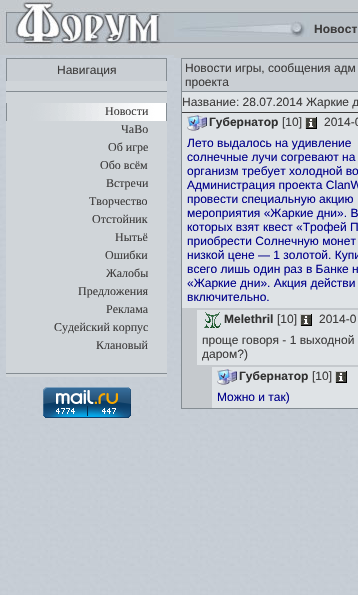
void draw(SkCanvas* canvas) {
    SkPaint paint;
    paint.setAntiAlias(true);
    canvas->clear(0xFFFFFFFF);
    canvas->drawImageRect(SkImages::DeferredFromEncodedData(SkData::MakeFromFileName("img1.png")), SkRect::MakeXYWH(0, 55, 358, 540), SkSamplingOptions());
    canvas->drawImageRect(SkImages::DeferredFromEncodedData(SkData::MakeFromFileName("img2.png")), SkRect::MakeXYWH(0, 0, 174, 55), SkSamplingOptions());
    canvas->drawImageRect(SkImages::DeferredFromEncodedData(SkData::MakeFromFileName("img3.png")), SkRect::MakeXYWH(174, 0, 184, 58), SkSamplingOptions());
    canvas->drawImageRect(SkImages::DeferredFromEncodedData(SkData::MakeFromFileName("img4.png")), SkRect::MakeXYWH(174, 13, 136, 24), SkSamplingOptions());
    SkFont font1(fontMgr->matchFamilyStyle("Liberation Sans", SkFontStyle::Bold()), 12);
    font1.setSubpixel(true);
    paint.setColor(0xFF3E3D3D);
    canvas->drawString("Новост", 314, 33, font1, paint);
    paint.setColor(0xFFCACFD4);
    canvas->drawRect(SkRect::MakeXYWH(7, 59, 159, 22), paint);
    paint.setColor(0xFF858D93);
    canvas->drawRect(SkRect::MakeXYWH(6, 58, 161, 1), paint);
    canvas->drawRect(SkRect::MakeXYWH(166, 58, 1, 23), paint);
    canvas->drawRect(SkRect::MakeXYWH(6, 58, 1, 23), paint);
    SkFont font2(fontMgr->matchFamilyStyle("Liberation Sans", SkFontStyle::Normal()), 12);
    font2.setSubpixel(true);
    paint.setColor(0xFF3E3D3D);
    canvas->drawString("Навигация", 57, 74, font2, paint);
    paint.setColor(0xFFD0D5D9);
    canvas->drawRect(SkRect::MakeXYWH(6, 81, 161, 296), paint);
    paint.setColor(0xFF858D93);
    canvas->drawRect(SkRect::MakeXYWH(6, 91, 161, 1), paint);
    canvas->drawImageRect(SkImages::DeferredFromEncodedData(SkData::MakeFromFileName("img5.png")), SkRect::MakeXYWH(6, 103, 161, 18), SkSamplingOptions());
    SkFont font3(fontMgr->matchFamilyStyle("Liberation Serif", SkFontStyle::Normal()), 12);
    font3.setSubpixel(true);
    paint.setColor(0xFF3E3D3D);
    canvas->drawString("Новости", 105, 115, font3, paint);
    canvas->drawString("ЧаВо", 121, 133, font3, paint);
    canvas->drawString("Об игре", 108, 151, font3, paint);
    canvas->drawString("Обо всём", 100, 169, font3, paint);
    canvas->drawString("Встречи", 106, 187, font3, paint);
    canvas->drawString("Творчество", 89, 205, font3, paint);
    canvas->drawString("Отстойник", 92, 223, font3, paint);
    canvas->drawString("Нытьё", 115, 241, font3, paint);
    canvas->drawString("Ошибки", 105, 259, font3, paint);
    canvas->drawString("Жалобы", 106, 277, font3, paint);
    canvas->drawString("Предложения", 78, 295, font3, paint);
    canvas->drawString("Реклама", 106, 313, font3, paint);
    canvas->drawString("Судейский корпус", 54, 331, font3, paint);
    canvas->drawString("Клановый", 96, 349, font3, paint);
    paint.setColor(0xFF858D93);
    canvas->drawRect(SkRect::MakeXYWH(6, 373, 161, 1), paint);
    canvas->drawImageRect(SkImages::DeferredFromEncodedData(SkData::MakeFromFileName("img6.png")), SkRect::MakeXYWH(43, 387, 88, 31), SkSamplingOptions());
    paint.setColor(0xFFCACFD4);
    canvas->drawRect(SkRect::MakeXYWH(182, 59, 176, 32), paint);
    paint.setColor(0xFF858D93);
    canvas->drawRect(SkRect::MakeXYWH(181, 58, 177, 1), paint);
    canvas->drawRect(SkRect::MakeXYWH(181, 58, 1, 33), paint);
    paint.setColor(0xFF3E3D3D);
    canvas->drawString("Новости игры, сообщения адм", 185, 72, font2, paint);
    canvas->drawString("проекта", 185, 86, font2, paint);
    paint.setColor(0xFFC5C9CD);
    canvas->drawRect(SkRect::MakeXYWH(182, 308, 176, 100), paint);
    paint.setStyle(SkPaint::kStroke_Style);
    paint.setStrokeWidth(1);
    paint.setColor(0xFF858D93);
    canvas->drawRect(SkRect::MakeXYWH(181.5f, 91.5f, 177, 317), paint);
    paint.setStyle(SkPaint::kFill_Style);
    paint.setColor(0xFFDFE3E6);
    canvas->drawRect(SkRect::MakeXYWH(182, 92, 176, 20), paint);
    paint.setColor(0xFF3E3D3D);
    canvas->drawString("Название: 28.07.2014 Жаркие д", 182, 106, font2, paint);
    paint.setColor(0xFFDFE3E6);
    canvas->drawRect(SkRect::MakeXYWH(182, 113, 176, 195), paint);
    paint.setColor(0xFF3E3D3D);
    canvas->drawRect(SkRect::MakeXYWH(182, 112, 176, 1), paint);
    canvas->drawImageRect(SkImages::DeferredFromEncodedData(SkData::MakeFromFileName("img7.png")), SkRect::MakeXYWH(187, 115, 20, 16), SkSamplingOptions());
    paint.setColor(0xFF313131);
    canvas->drawString("Губернатор", 209, 126, font1, paint);
    paint.setColor(0xFF3E3D3D);
    canvas->drawString("[10]", 282, 126, font2, paint);
    canvas->drawImageRect(SkImages::DeferredFromEncodedData(SkData::MakeFromFileName("img8.png")), SkRect::MakeXYWH(305, 117, 12, 12), SkSamplingOptions());
    canvas->drawString("2014-0", 324, 126, font2, paint);
    paint.setColor(0xFF00008B);
    canvas->drawString("Лето выдалось на удивление", 187, 147, font2, paint);
    canvas->drawString("солнечные лучи согревают на", 187, 161, font2, paint);
    canvas->drawString("организм требует холодной во", 187, 175, font2, paint);
    canvas->drawString("Администрация проекта ClanW", 187, 189, font2, paint);
    canvas->drawString("провести специальную акцию", 187, 203, font2, paint);
    canvas->drawString("мероприятия «Жаркие дни». В", 187, 217, font2, paint);
    canvas->drawString("которых взят квест «Трофей П", 187, 231, font2, paint);
    canvas->drawString("приобрести Солнечную монет", 187, 245, font2, paint);
    canvas->drawString("низкой цене — 1 золотой. Купи", 187, 259, font2, paint);
    canvas->drawString("всего лишь один раз в Банке н", 187, 273, font2, paint);
    canvas->drawString("«Жаркие дни». Акция действи", 187, 287, font2, paint);
    canvas->drawString("включительно.", 187, 301, font2, paint);
    paint.setColor(0xFFDFE3E6);
    canvas->drawRect(SkRect::MakeXYWH(197, 310, 161, 55), paint);
    canvas->drawImageRect(SkImages::DeferredFromEncodedData(SkData::MakeFromFileName("img9.png")), SkRect::MakeXYWH(204, 312, 17, 16), SkSamplingOptions());
    paint.setColor(0xFF313131);
    canvas->drawString("Melethril", 224, 323, font1, paint);
    paint.setColor(0xFF3E3D3D);
    canvas->drawString("[10]", 277, 323, font2, paint);
    canvas->drawImageRect(SkImages::DeferredFromEncodedData(SkData::MakeFromFileName("img8.png")), SkRect::MakeXYWH(300, 314, 12, 12), SkSamplingOptions());
    canvas->drawString("2014-0", 319, 323, font2, paint);
    canvas->drawString("проще говоря - 1 выходной", 202, 344, font2, paint);
    canvas->drawString("даром?)", 202, 358, font2, paint);
    paint.setColor(0xFFDFE3E6);
    canvas->drawRect(SkRect::MakeXYWH(212, 367, 146, 41), paint);
    canvas->drawImageRect(SkImages::DeferredFromEncodedData(SkData::MakeFromFileName("img7.png")), SkRect::MakeXYWH(217, 369, 20, 16), SkSamplingOptions());
    paint.setColor(0xFF313131);
    canvas->drawString("Губернатор", 239, 380, font1, paint);
    paint.setColor(0xFF3E3D3D);
    canvas->drawString("[10]", 312, 380, font2, paint);
    canvas->drawImageRect(SkImages::DeferredFromEncodedData(SkData::MakeFromFileName("img8.png")), SkRect::MakeXYWH(335, 371, 12, 12), SkSamplingOptions());
    paint.setColor(0xFF00008B);
    canvas->drawString("Можно и так)", 217, 401, font2, paint);
}
